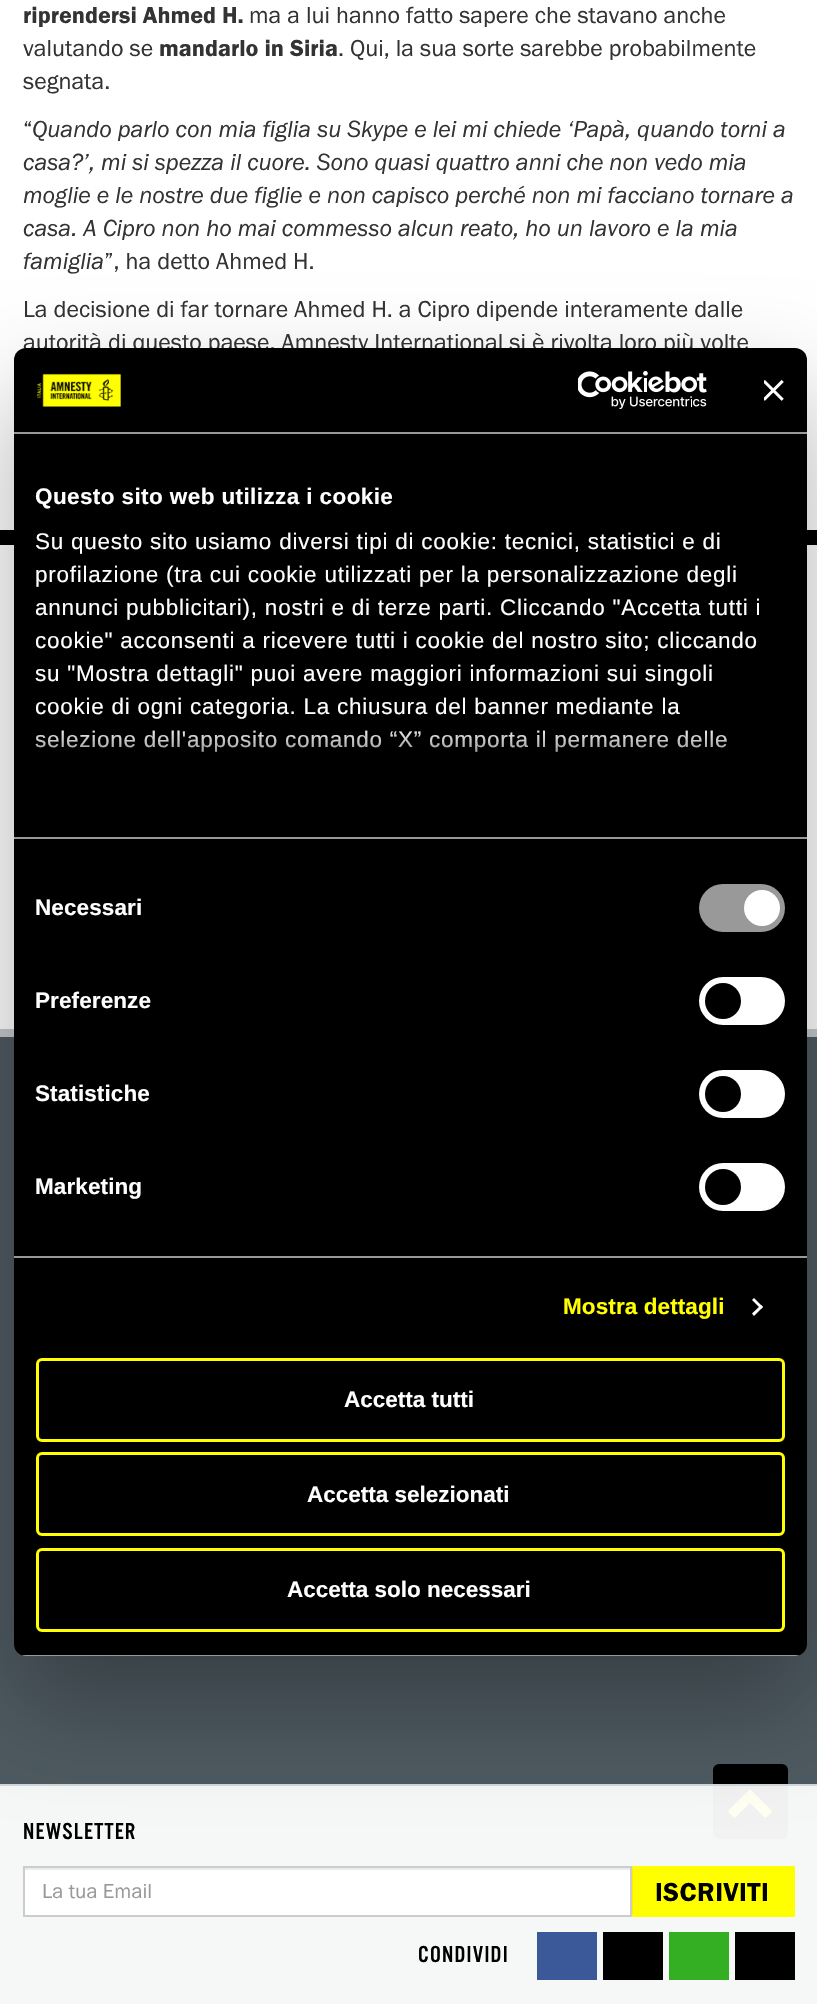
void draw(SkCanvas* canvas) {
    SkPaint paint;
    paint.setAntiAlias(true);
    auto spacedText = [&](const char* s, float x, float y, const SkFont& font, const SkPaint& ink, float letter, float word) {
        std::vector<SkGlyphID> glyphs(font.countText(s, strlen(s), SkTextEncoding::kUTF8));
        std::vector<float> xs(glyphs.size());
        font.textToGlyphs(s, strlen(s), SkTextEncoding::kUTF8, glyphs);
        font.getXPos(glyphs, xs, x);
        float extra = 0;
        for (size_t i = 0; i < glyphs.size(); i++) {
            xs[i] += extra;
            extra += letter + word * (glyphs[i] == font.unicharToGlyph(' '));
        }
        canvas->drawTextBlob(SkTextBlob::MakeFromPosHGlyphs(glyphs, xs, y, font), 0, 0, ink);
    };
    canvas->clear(0xFFFFFFFF);
    SkFont font1(fontMgr->matchFamilyStyle("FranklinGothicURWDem", SkFontStyle::Normal()), 24);
    font1.setSubpixel(true);
    paint.setColor(0xFF333333);
    canvas->drawString("riprendersi Ahmed H.", 23, 23, font1, paint);
    SkFont font2(fontMgr->matchFamilyStyle("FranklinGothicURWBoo", SkFontStyle::Normal()), 24);
    font2.setSubpixel(true);
    canvas->drawString("ma a lui hanno fatto sapere che stavano anche", 249, 23, font2, paint);
    canvas->drawString("valutando se", 23, 56, font2, paint);
    canvas->drawString("mandarlo in Siria", 159, 56, font1, paint);
    canvas->drawString(". Qui, la sua sorte sarebbe probabilmente", 338, 56, font2, paint);
    canvas->drawString("segnata.", 23, 89, font2, paint);
    canvas->drawString("“", 23, 137, font2, paint);
    SkFont font3(fontMgr->matchFamilyStyle("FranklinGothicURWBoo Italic", SkFontStyle::Italic()), 24);
    font3.setSubpixel(true);
    canvas->drawString("Quando parlo con mia figlia su Skype e lei mi chiede ‘Papà, quando torni a", 32, 137, font3, paint);
    canvas->drawString("casa?’, mi si spezza il cuore. Sono quasi quattro anni che non vedo mia", 23, 170, font3, paint);
    canvas->drawString("moglie e le nostre due figlie e non capisco perché non mi facciano tornare a", 23, 203, font3, paint);
    canvas->drawString("casa. A Cipro non ho mai commesso alcun reato, ho un lavoro e la mia", 23, 236, font3, paint);
    canvas->drawString("famiglia", 23, 269, font3, paint);
    canvas->drawString("”, ha detto Ahmed H.", 104, 269, font2, paint);
    canvas->drawString("La decisione di far tornare Ahmed H. a Cipro dipende interamente dalle", 23, 317, font2, paint);
    canvas->drawString("autorità di questo paese. Amnesty International si è rivolta loro più volte", 23, 350, font2, paint);
    paint.setColor(0xFF000000);
    canvas->drawRect(SkRect::MakeXYWH(0, 530, 817, 15), paint);
    paint.setColor(0xFF4E5A61);
    canvas->drawRect(SkRect::MakeXYWH(0, 1037, 817, 967), paint);
    paint.setColor(0xFF000000);
    canvas->drawRoundRect(SkRect::MakeXYWH(713, 1764, 75, 75), 6, 6, paint);
    canvas->drawImageRect(SkImages::DeferredFromEncodedData(SkData::MakeFromFileName("img4.png")), SkRect::MakeXYWH(728, 1789, 44, 29), SkSamplingOptions());
    paint.setColor(0xF2FFFFFF);
    canvas->drawRect(SkRect::MakeXYWH(0, 1786, 817, 218), paint);
    paint.setColor(0xFFD1D8DB);
    canvas->drawRect(SkRect::MakeXYWH(0, 1784, 817, 2), paint);
    SkFont font4(fontMgr->matchFamilyStyle("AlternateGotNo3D", SkFontStyle::Normal()), 24);
    font4.setSubpixel(true);
    paint.setColor(0xFF000000);
    spacedText("NEWSLETTER", 23, 1839, font4, paint, 1.25f, 0);
    paint.setColor(0xFFFFFFFF);
    canvas->drawRect(SkRect::MakeXYWH(25, 1870, 605, 45), paint);
    paint.setColor(0xFFECECEC);
    canvas->drawRect(SkRect::MakeXYWH(24, 1868, 606, 2), paint);
    paint.setStyle(SkPaint::kStroke_Style);
    paint.setStrokeWidth(2);
    paint.setColor(0xFFCCCCCC);
    canvas->drawRect(SkRect::MakeXYWH(24, 1867, 607, 49), paint);
    SkFont font5(fontMgr->matchFamilyStyle("FranklinGothicURWBoo", SkFontStyle::Normal()), 21);
    font5.setSubpixel(true);
    paint.setStyle(SkPaint::kFill_Style);
    paint.setColor(0xFF999999);
    canvas->drawString("La tua Email", 42, 1898, font5, paint);
    paint.setColor(0xFFFFFF00);
    canvas->drawRect(SkRect::MakeXYWH(633, 1869, 159, 45), paint);
    canvas->drawPath(SkPathBuilder().moveTo(632, 1866).lineTo(795, 1866).lineTo(792, 1869).lineTo(633, 1869).close().detach(), paint);
    canvas->drawRect(SkRect::MakeXYWH(792, 1866, 3, 51), paint);
    canvas->drawPath(SkPathBuilder().moveTo(795, 1917).lineTo(632, 1917).lineTo(633, 1914).lineTo(792, 1914).close().detach(), paint);
    paint.setColor(0xFFFFEB00);
    canvas->drawPath(SkPathBuilder().moveTo(632, 1917).lineTo(632, 1866).lineTo(633, 1869).lineTo(633, 1914).close().detach(), paint);
    SkFont font6(fontMgr->matchFamilyStyle("FranklinGothicURWDem", SkFontStyle::Normal()), 27);
    font6.setSubpixel(true);
    paint.setColor(0xFF000000);
    spacedText("ISCRIVITI", 655, 1901, font6, paint, 0.5f, 0);
    spacedText("CONDIVIDI", 418, 1962, font4, paint, 1.25f, 0);
    paint.setColor(0xFF3B5998);
    canvas->drawRect(SkRect::MakeXYWH(537, 1932, 60, 48), paint);
    paint.setColor(0xFF000000);
    canvas->drawRect(SkRect::MakeXYWH(603, 1932, 60, 48), paint);
    paint.setColor(0xFF34AF23);
    canvas->drawRect(SkRect::MakeXYWH(669, 1932, 60, 48), paint);
    paint.setColor(0xFF000000);
    canvas->drawRect(SkRect::MakeXYWH(735, 1932, 60, 48), paint);
    paint.setColor(0xFFC3CACD);
    canvas->drawRect(SkRect::MakeXYWH(0, 1029, 817, 8), paint);
    paint.setColor(0x4D000000);
    paint.setMaskFilter(SkMaskFilter::MakeBlur(kNormal_SkBlurStyle, 51));
    canvas->drawRoundRect(SkRect::MakeXYWH(14, 396, 793, 1308), 12, 12, paint);
    paint.setMaskFilter(nullptr);
    paint.setColor(0xFF000000);
    canvas->drawRoundRect(SkRect::MakeXYWH(14, 348, 793, 1308), 12, 12, paint);
    paint.setColor(0xFF999999);
    canvas->drawRect(SkRect::MakeXYWH(14, 432, 793, 2), paint);
    canvas->drawImageRect(SkImages::DeferredFromEncodedData(SkData::MakeFromFileName("img1.png")), SkRect::MakeXYWH(37, 373, 84, 34), SkSamplingOptions());
    canvas->drawImageRect(SkImages::DeferredFromEncodedData(SkData::MakeFromFileName("img2.png")), SkRect::MakeXYWH(578, 371, 129, 38), SkSamplingOptions());
    canvas->drawImageRect(SkImages::DeferredFromEncodedData(SkData::MakeFromFileName("img3.png")), SkRect::MakeXYWH(764, 380, 20, 21), SkSamplingOptions());
    canvas->drawRect(SkRect::MakeXYWH(14, 837, 793, 2), paint);
    SkFont font7(fontMgr->matchFamilyStyle("Liberation Sans", SkFontStyle::Bold()), 22.5f);
    font7.setSubpixel(true);
    paint.setColor(0xFFFFFFFF);
    spacedText("Questo sito web utilizza i cookie", 35, 504, font7, paint, 0.4f, 0);
    SkFont font8(fontMgr->matchFamilyStyle("Liberation Sans", SkFontStyle::Normal()), 22.5f);
    font8.setSubpixel(true);
    spacedText("Su questo sito usiamo diversi tipi di cookie: tecnici, statistici e di", 35, 549, font8, paint, 0.75f, 0);
    spacedText("profilazione (tra cui cookie utilizzati per la personalizzazione degli", 35, 582, font8, paint, 0.75f, 0);
    spacedText("annunci pubblicitari), nostri e di terze parti. Cliccando \"Accetta tutti i", 35, 615, font8, paint, 0.75f, 0);
    spacedText("cookie\" acconsenti a ricevere tutti i cookie del nostro sito; cliccando", 35, 648, font8, paint, 0.75f, 0);
    spacedText("su \"Mostra dettagli\" puoi avere maggiori informazioni sui singoli", 35, 681, font8, paint, 0.75f, 0);
    spacedText("cookie di ogni categoria. La chiusura del banner mediante la", 35, 714, font8, paint, 0.75f, 0);
    spacedText("selezione dell'apposito comando “X” comporta il permanere delle", 35, 747, font8, paint, 0.75f, 0);
    {
        const SkColor colors[] = {0xFF000000, 0xCC000000, 0x00000000};
        const float stops[] = {0, 0.5f, 1};
        const SkPoint ends[] = {{400, 837}, {400, 725}};
        paint.setShader(SkGradientShader::MakeLinear(ends, colors, stops, 3, SkTileMode::kClamp));
        paint.setAlpha(255);
    }
    canvas->drawRect(SkRect::MakeXYWH(35, 730, 691, 22), paint);
    paint.setShader(nullptr);
    paint.setColor(0xFF999999);
    canvas->drawRect(SkRect::MakeXYWH(14, 1256, 793, 2), paint);
    paint.setColor(0xFFFFFFFF);
    spacedText("Necessari", 35, 915, font7, paint, 0.1f, 0);
    paint.setColor(0xFF999999);
    canvas->drawRoundRect(SkRect::MakeXYWH(699, 884, 86, 48), 24, 24, paint);
    paint.setColor(0xFFFFFFFF);
    canvas->drawCircle(762, 908, 18, paint);
    spacedText("Preferenze", 35, 1008, font7, paint, 0.1f, 0);
    canvas->drawRoundRect(SkRect::MakeXYWH(699, 977, 86, 48), 24, 24, paint);
    paint.setColor(0xFF000000);
    canvas->drawCircle(723, 1001, 18, paint);
    paint.setColor(0xFFFFFFFF);
    spacedText("Statistiche", 35, 1101, font7, paint, 0.1f, 0);
    canvas->drawRoundRect(SkRect::MakeXYWH(699, 1070, 86, 48), 24, 24, paint);
    paint.setColor(0xFF000000);
    canvas->drawCircle(723, 1094, 18, paint);
    paint.setColor(0xFFFFFFFF);
    spacedText("Marketing", 35, 1194, font7, paint, 0.1f, 0);
    canvas->drawRoundRect(SkRect::MakeXYWH(699, 1163, 86, 48), 24, 24, paint);
    paint.setColor(0xFF000000);
    canvas->drawCircle(723, 1187, 18, paint);
    paint.setColor(0xFFFFFF00);
    spacedText("Mostra dettagli", 563, 1314, font7, paint, 0.1f, 0);
    paint.setColor(0xFFFFFFFF);
    canvas->drawPath(SkPathBuilder().moveTo(754, 1298).lineTo(763, 1307).lineTo(761, 1309).lineTo(752, 1300).close().detach(), paint);
    canvas->drawPath(SkPathBuilder().moveTo(761, 1305).lineTo(763, 1307).lineTo(754, 1316).lineTo(752, 1313.5f).close().detach(), paint);
    canvas->save();
    canvas->clipPath(SkPathBuilder().moveTo(26, 348).lineTo(795, 348).cubicTo(801.5f, 348, 807, 353.5f, 807, 360).lineTo(807, 1644).cubicTo(807, 1650.5f, 801.5f, 1656, 795, 1656).lineTo(26, 1656).cubicTo(19.5f, 1656, 14, 1650.5f, 14, 1644).lineTo(14, 360).cubicTo(14, 353.5f, 19.5f, 348, 26, 348).close().detach(), true);
    paint.setColor(0xFF999999);
    canvas->drawRect(SkRect::MakeXYWH(14, 1655, 793, 1), paint);
    canvas->restore();
    paint.setStyle(SkPaint::kStroke_Style);
    paint.setStrokeWidth(3);
    paint.setColor(0xFFFFFF00);
    canvas->drawRoundRect(SkRect::MakeXYWH(37.5f, 1359.5f, 746, 81), 4.5f, 4.5f, paint);
    paint.setStyle(SkPaint::kFill_Style);
    paint.setColor(0xFFFFFFFF);
    canvas->drawString("Accetta tutti", 344, 1407, font7, paint);
    paint.setStyle(SkPaint::kStroke_Style);
    paint.setColor(0xFFFFFF00);
    canvas->drawRoundRect(SkRect::MakeXYWH(37.5f, 1453.5f, 746, 81), 4.5f, 4.5f, paint);
    paint.setStyle(SkPaint::kFill_Style);
    paint.setColor(0xFFFFFFFF);
    canvas->drawString("Accetta selezionati", 307, 1502, font7, paint);
    paint.setStyle(SkPaint::kStroke_Style);
    paint.setColor(0xFFFFFF00);
    canvas->drawRoundRect(SkRect::MakeXYWH(37.5f, 1549.5f, 746, 81), 4.5f, 4.5f, paint);
    paint.setStyle(SkPaint::kFill_Style);
    paint.setColor(0xFFFFFFFF);
    canvas->drawString("Accetta solo necessari", 287, 1597, font7, paint);
}
